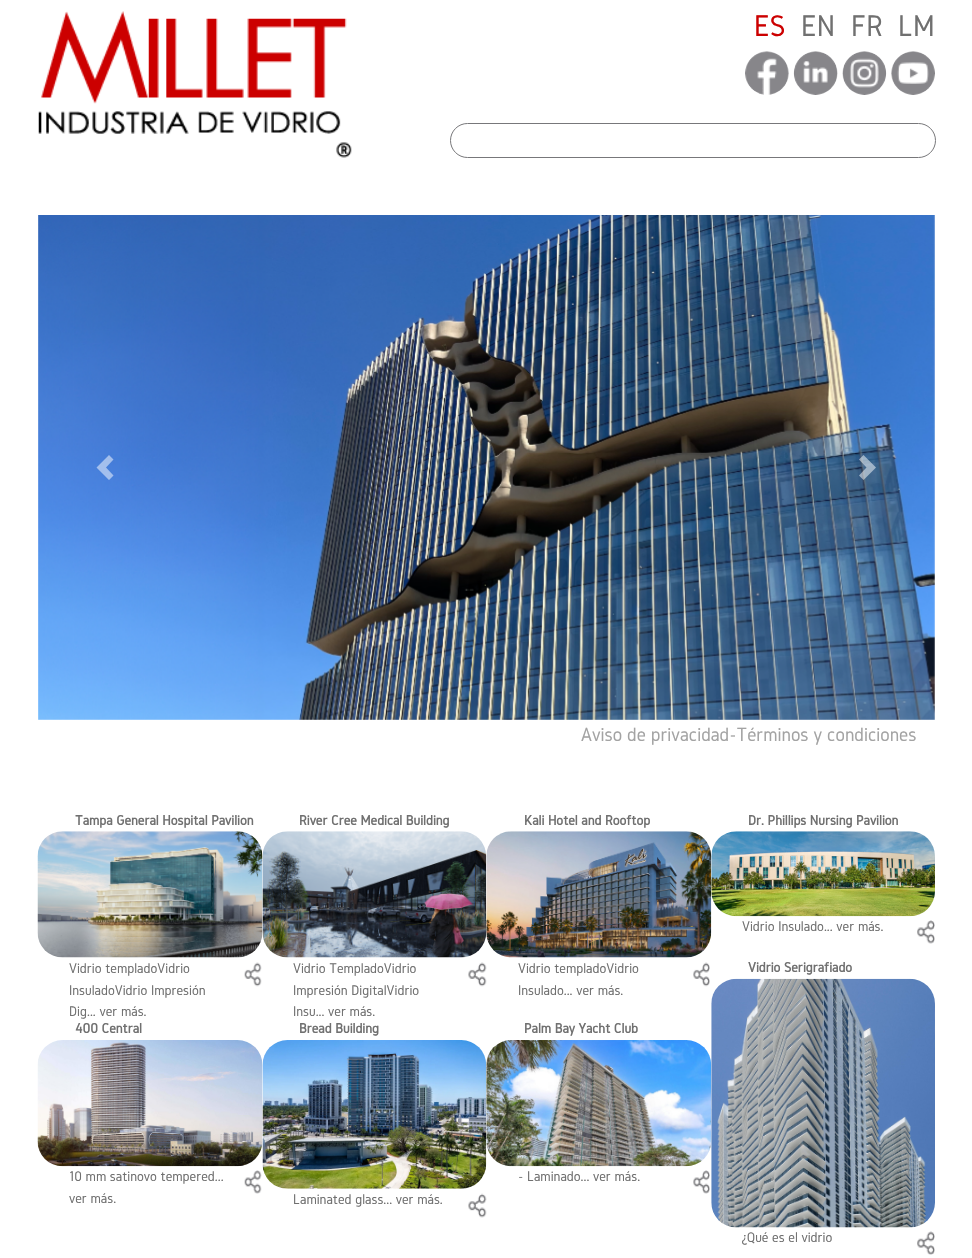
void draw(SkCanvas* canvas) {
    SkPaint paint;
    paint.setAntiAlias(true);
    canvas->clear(0xFFFFFFFF);
    canvas->drawImageRect(SkImages::DeferredFromEncodedData(SkData::MakeFromFileName("img1.png")), SkRect::MakeXYWH(38, 11, 314, 147), SkSamplingOptions());
    SkFont font1(fontMgr->matchFamilyStyle("Gidole", SkFontStyle::Normal()), 31);
    font1.setSubpixel(true);
    paint.setColor(0xFFCC0000);
    canvas->drawString("ES", 754, 36, font1, paint);
    paint.setColor(0xFF707070);
    canvas->drawString("EN", 801, 36, font1, paint);
    canvas->drawString("FR", 851, 36, font1, paint);
    canvas->drawString("LM", 898, 36, font1, paint);
    canvas->drawImageRect(SkImages::DeferredFromEncodedData(SkData::MakeFromFileName("img2.png")), SkRect::MakeXYWH(745, 51, 44, 44), SkSamplingOptions());
    canvas->drawImageRect(SkImages::DeferredFromEncodedData(SkData::MakeFromFileName("img3.png")), SkRect::MakeXYWH(793, 51, 45, 44), SkSamplingOptions());
    canvas->drawImageRect(SkImages::DeferredFromEncodedData(SkData::MakeFromFileName("img4.png")), SkRect::MakeXYWH(842, 51, 45, 44), SkSamplingOptions());
    canvas->drawImageRect(SkImages::DeferredFromEncodedData(SkData::MakeFromFileName("img5.png")), SkRect::MakeXYWH(891, 51, 44, 44), SkSamplingOptions());
    paint.setStyle(SkPaint::kStroke_Style);
    paint.setStrokeWidth(1);
    paint.setColor(0xFF77777A);
    canvas->drawRoundRect(SkRect::MakeXYWH(450.5f, 123.5f, 485, 34), 17, 17, paint);
    canvas->drawImageRect(SkImages::DeferredFromEncodedData(SkData::MakeFromFileName("img6.png")), SkRect::MakeXYWH(38, 215, 897, 505), SkSamplingOptions());
    paint.setStyle(SkPaint::kFill_Style);
    paint.setColor(0x80FFFFFF);
    canvas->drawPath(SkPathBuilder().moveTo(109, 455).lineTo(96.5f, 467.5f).lineTo(109, 480).lineTo(113.5f, 475.5f).lineTo(106, 467.5f).lineTo(113.5f, 459.5f).close().detach(), paint);
    canvas->drawPath(SkPathBuilder().moveTo(863.5f, 455).lineTo(859, 459.5f).lineTo(866.5f, 467.5f).lineTo(859, 475.5f).lineTo(863.5f, 480).lineTo(876, 467.5f).close().detach(), paint);
    SkFont font2(fontMgr->matchFamilyStyle("Gidole", SkFontStyle::Normal()), 20);
    font2.setSubpixel(true);
    paint.setColor(0xFFA3A3A3);
    canvas->drawString("Aviso de privacidad-Términos y condiciones", 581, 741, font2, paint);
    SkFont font3(fontMgr->matchFamilyStyle("Gidole", SkFontStyle::Bold()), 14.4f);
    font3.setSubpixel(true);
    paint.setColor(0xFF707070);
    canvas->drawString("Tampa General Hospital Pavilion", 75, 825, font3, paint);
    canvas->drawImageRect(SkImages::DeferredFromEncodedData(SkData::MakeFromFileName("img7.png")), SkRect::MakeXYWH(37, 831, 226, 127), SkSamplingOptions());
    SkFont font4(fontMgr->matchFamilyStyle("Gidole", SkFontStyle::Normal()), 14.5f);
    font4.setSubpixel(true);
    canvas->drawString("Vidrio templadoVidrio", 69, 973, font4, paint);
    canvas->drawString("InsuladoVidrio Impresión", 69, 995, font4, paint);
    canvas->drawString("Dig... ver más.", 69, 1016, font4, paint);
    canvas->drawImageRect(SkImages::DeferredFromEncodedData(SkData::MakeFromFileName("img8.png")), SkRect::MakeXYWH(244, 962, 18, 25), SkSamplingOptions());
    canvas->drawString("400 Central", 75, 1033, font3, paint);
    canvas->drawImageRect(SkImages::DeferredFromEncodedData(SkData::MakeFromFileName("img9.png")), SkRect::MakeXYWH(37, 1040, 226, 127), SkSamplingOptions());
    canvas->drawString("10 mm satinovo tempered...", 69, 1181, font4, paint);
    canvas->drawString("ver más.", 69, 1203, font4, paint);
    canvas->drawImageRect(SkImages::DeferredFromEncodedData(SkData::MakeFromFileName("img10.png")), SkRect::MakeXYWH(244, 1170, 18, 24), SkSamplingOptions());
    canvas->drawString("River Cree Medical Building", 299, 825, font3, paint);
    canvas->drawImageRect(SkImages::DeferredFromEncodedData(SkData::MakeFromFileName("img11.png")), SkRect::MakeXYWH(262, 831, 225, 127), SkSamplingOptions());
    canvas->drawString("Vidrio TempladoVidrio", 293, 973, font4, paint);
    canvas->drawString("Impresión DigitalVidrio", 293, 995, font4, paint);
    canvas->drawString("Insu... ver más.", 293, 1016, font4, paint);
    canvas->drawImageRect(SkImages::DeferredFromEncodedData(SkData::MakeFromFileName("img12.png")), SkRect::MakeXYWH(468, 962, 19, 25), SkSamplingOptions());
    canvas->drawString("Bread Building", 299, 1033, font3, paint);
    canvas->drawImageRect(SkImages::DeferredFromEncodedData(SkData::MakeFromFileName("img13.png")), SkRect::MakeXYWH(262, 1040, 225, 149), SkSamplingOptions());
    canvas->drawString("Laminated glass... ver más.", 293, 1204, font4, paint);
    canvas->drawImageRect(SkImages::DeferredFromEncodedData(SkData::MakeFromFileName("img14.png")), SkRect::MakeXYWH(468, 1193, 19, 25), SkSamplingOptions());
    canvas->drawString("Kali Hotel and Rooftop", 524, 825, font3, paint);
    canvas->drawImageRect(SkImages::DeferredFromEncodedData(SkData::MakeFromFileName("img15.png")), SkRect::MakeXYWH(486, 831, 226, 127), SkSamplingOptions());
    canvas->drawString("Vidrio templadoVidrio", 518, 973, font4, paint);
    canvas->drawString("Insulado... ver más.", 518, 995, font4, paint);
    canvas->drawImageRect(SkImages::DeferredFromEncodedData(SkData::MakeFromFileName("img16.png")), SkRect::MakeXYWH(693, 962, 17, 25), SkSamplingOptions());
    canvas->drawString("Palm Bay Yacht Club", 524, 1033, font3, paint);
    canvas->drawImageRect(SkImages::DeferredFromEncodedData(SkData::MakeFromFileName("img17.png")), SkRect::MakeXYWH(486, 1040, 226, 127), SkSamplingOptions());
    canvas->drawString("- Laminado... ver más.", 518, 1181, font4, paint);
    canvas->drawImageRect(SkImages::DeferredFromEncodedData(SkData::MakeFromFileName("img18.png")), SkRect::MakeXYWH(693, 1170, 17, 24), SkSamplingOptions());
    canvas->drawString("Dr. Phillips Nursing Pavilion", 748, 825, font3, paint);
    canvas->drawImageRect(SkImages::DeferredFromEncodedData(SkData::MakeFromFileName("img19.png")), SkRect::MakeXYWH(711, 831, 224, 86), SkSamplingOptions());
    canvas->drawString("Vidrio Insulado... ver más.", 742, 931, font4, paint);
    canvas->drawImageRect(SkImages::DeferredFromEncodedData(SkData::MakeFromFileName("img20.png")), SkRect::MakeXYWH(917, 920, 18, 24), SkSamplingOptions());
    canvas->drawString("Vidrio Serigrafiado", 748, 972, font3, paint);
    canvas->drawImageRect(SkImages::DeferredFromEncodedData(SkData::MakeFromFileName("img21.png")), SkRect::MakeXYWH(711, 978, 224, 250), SkSamplingOptions());
    canvas->drawString("¿Qué es el vidrio", 742, 1242, font4, paint);
    canvas->drawImageRect(SkImages::DeferredFromEncodedData(SkData::MakeFromFileName("img22.png")), SkRect::MakeXYWH(917, 1231, 18, 24), SkSamplingOptions());
}
